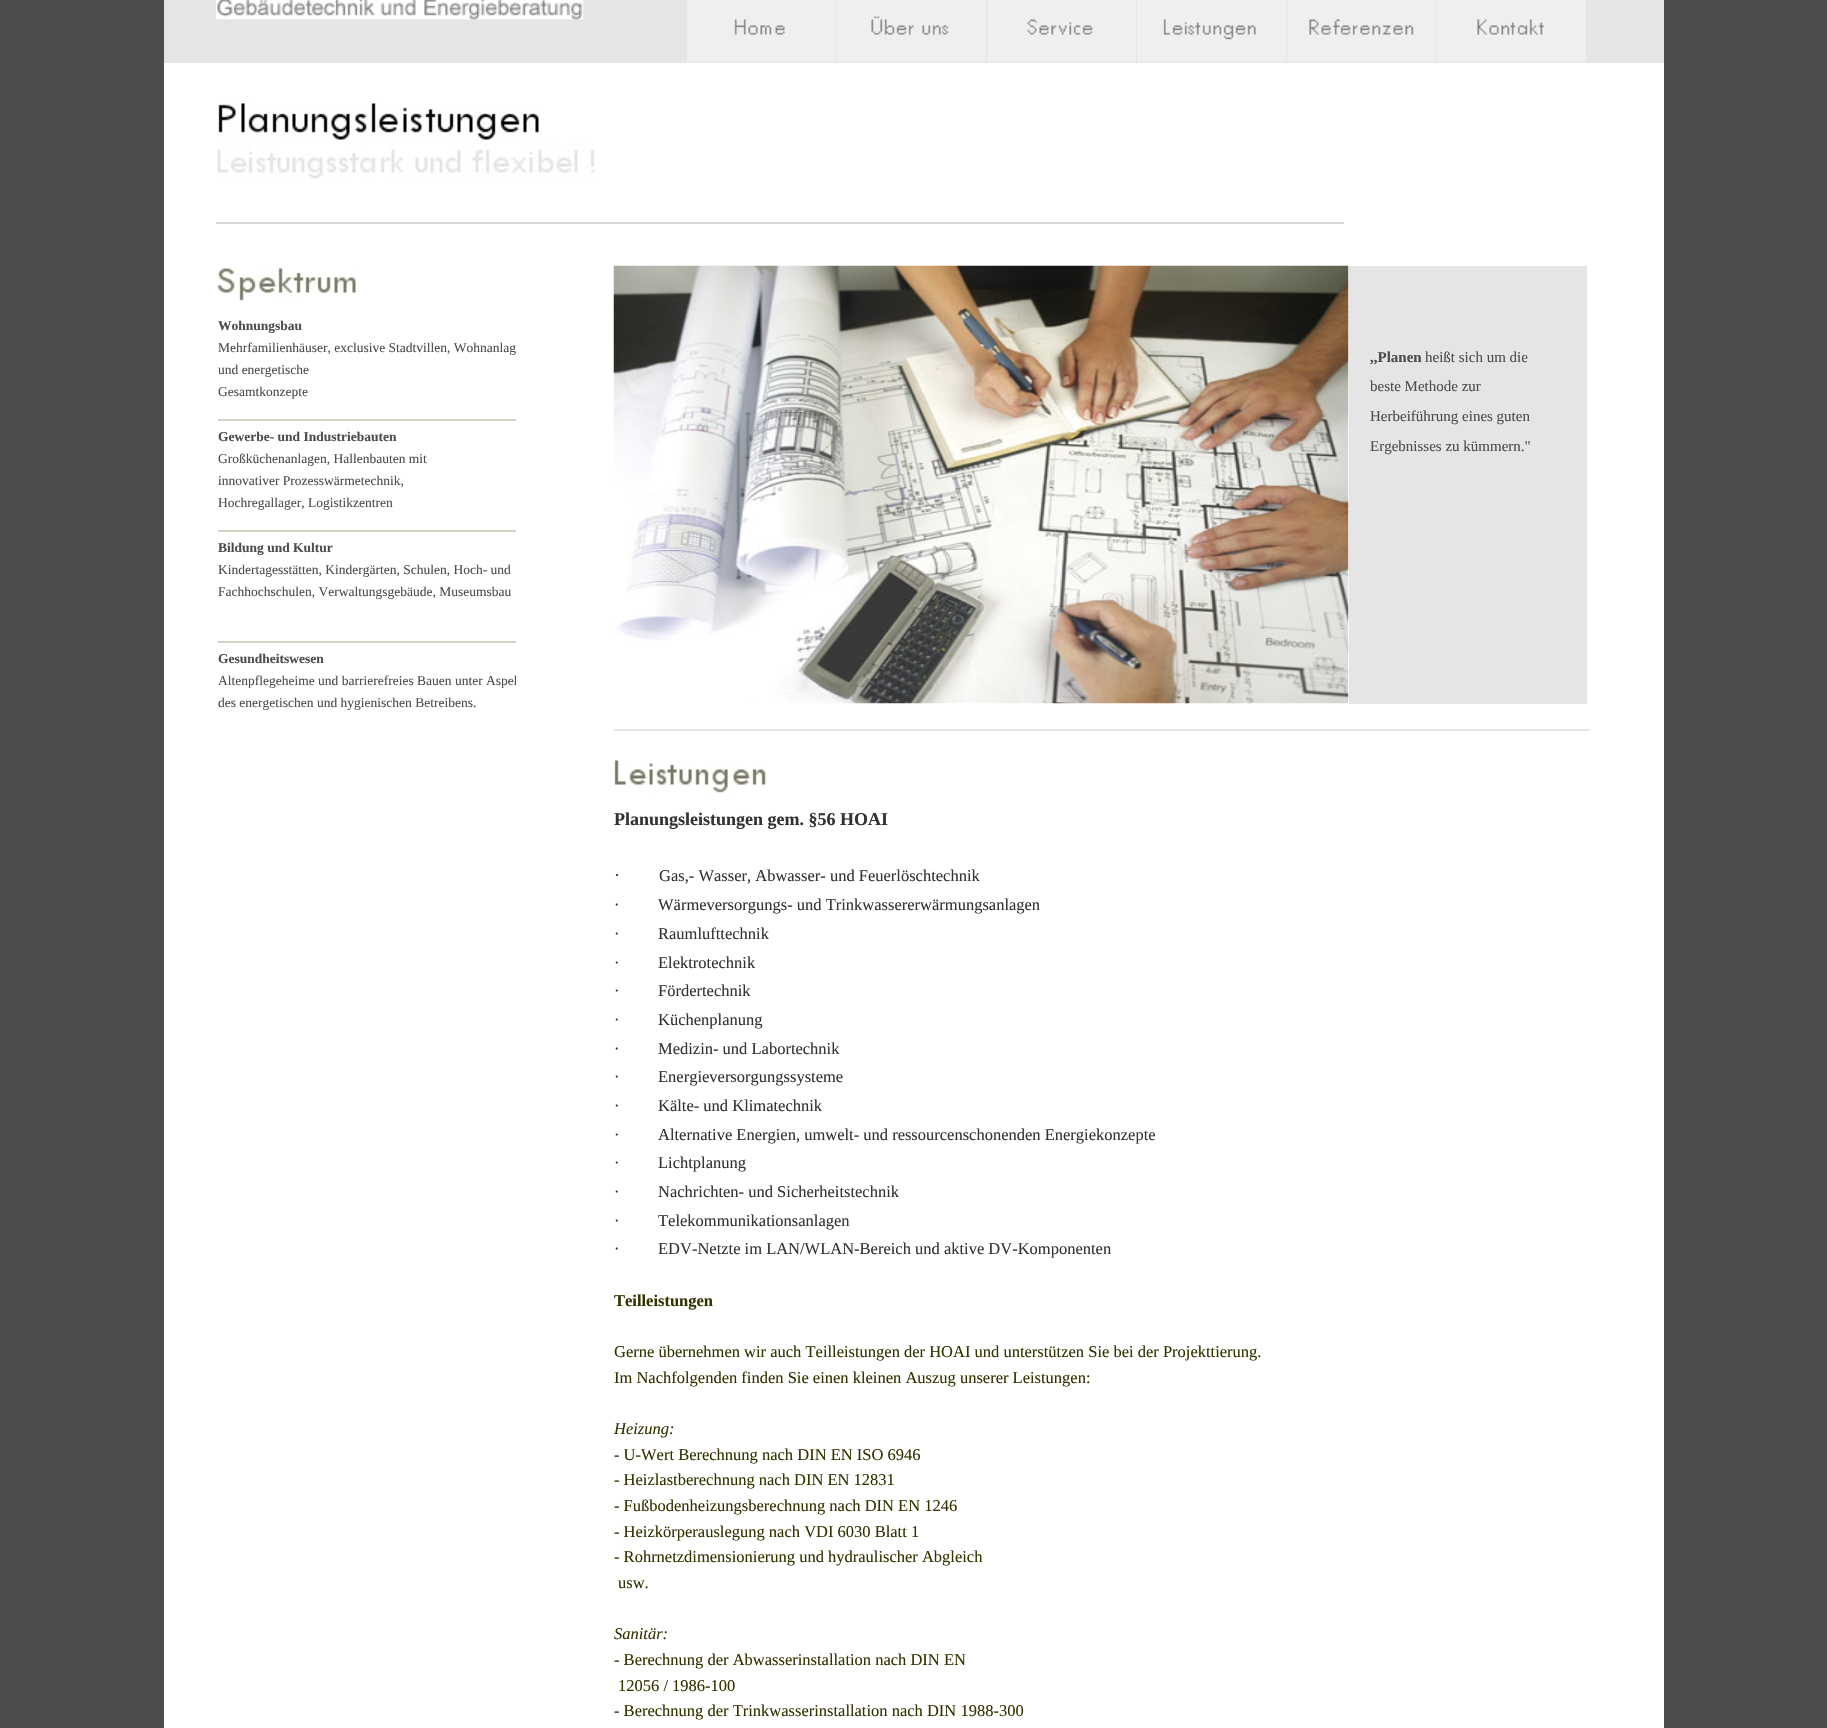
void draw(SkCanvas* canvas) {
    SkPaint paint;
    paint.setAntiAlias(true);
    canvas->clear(0xFF4C4C4C);
    paint.setColor(0xFFFFFFFF);
    canvas->drawRect(SkRect::MakeXYWH(164, 63, 1500, 1665), paint);
    paint.setColor(0xFFE5E5E5);
    canvas->drawRect(SkRect::MakeXYWH(164, 0, 1500, 63), paint);
    paint.setColor(0xFFEFEFEF);
    canvas->drawRect(SkRect::MakeXYWH(687, 0, 149, 62), paint);
    canvas->drawImageRect(SkImages::DeferredFromEncodedData(SkData::MakeFromFileName("img1.png")), SkRect::MakeXYWH(734, 19, 51, 16), SkSamplingOptions());
    canvas->drawRect(SkRect::MakeXYWH(837, 0, 149, 62), paint);
    canvas->drawImageRect(SkImages::DeferredFromEncodedData(SkData::MakeFromFileName("img2.png")), SkRect::MakeXYWH(871, 16, 78, 19), SkSamplingOptions());
    canvas->drawRect(SkRect::MakeXYWH(987, 0, 149, 62), paint);
    canvas->drawImageRect(SkImages::DeferredFromEncodedData(SkData::MakeFromFileName("img3.png")), SkRect::MakeXYWH(1027, 19, 66, 16), SkSamplingOptions());
    canvas->drawRect(SkRect::MakeXYWH(1137, 0, 149, 62), paint);
    canvas->drawImageRect(SkImages::DeferredFromEncodedData(SkData::MakeFromFileName("img4.png")), SkRect::MakeXYWH(1163, 19, 93, 21), SkSamplingOptions());
    canvas->drawRect(SkRect::MakeXYWH(1287, 0, 149, 62), paint);
    canvas->drawImageRect(SkImages::DeferredFromEncodedData(SkData::MakeFromFileName("img5.png")), SkRect::MakeXYWH(1309, 19, 105, 16), SkSamplingOptions());
    canvas->drawRect(SkRect::MakeXYWH(1437, 0, 149, 62), paint);
    canvas->drawImageRect(SkImages::DeferredFromEncodedData(SkData::MakeFromFileName("img6.png")), SkRect::MakeXYWH(1477, 19, 67, 16), SkSamplingOptions());
    canvas->drawImageRect(SkImages::DeferredFromEncodedData(SkData::MakeFromFileName("img7.png")), SkRect::MakeXYWH(216, 0, 368, 20), SkSamplingOptions());
    canvas->drawImageRect(SkImages::DeferredFromEncodedData(SkData::MakeFromFileName("img8.png")), SkRect::MakeXYWH(217, 103, 378, 76), SkSamplingOptions());
    paint.setColor(0xFFD7D7D7);
    canvas->drawRect(SkRect::MakeXYWH(216, 222, 1128, 2), paint);
    canvas->drawImageRect(SkImages::DeferredFromEncodedData(SkData::MakeFromFileName("img9.png")), SkRect::MakeXYWH(217, 267, 139, 34), SkSamplingOptions());
    paint.setColor(0xFFD7D3C2);
    canvas->drawRect(SkRect::MakeXYWH(218, 419, 298, 2), paint);
    SkFont font1(fontMgr->matchFamilyStyle("Liberation Serif", SkFontStyle::Bold()), 13.5f);
    font1.setSubpixel(true);
    paint.setColor(0xFF4D4D4D);
    canvas->drawString("Wohnungsbau", 218, 330, font1, paint);
    SkFont font2(fontMgr->matchFamilyStyle("Liberation Serif", SkFontStyle::Normal()), 13.5f);
    font2.setSubpixel(true);
    canvas->drawString("Mehrfamilienhäuser, exclusive Stadtvillen, Wohnanlag", 218, 352, font2, paint);
    canvas->drawString("und energetische", 218, 374, font2, paint);
    canvas->drawString("Gesamtkonzepte", 218, 396, font2, paint);
    paint.setColor(0xFFD7D3C2);
    canvas->drawRect(SkRect::MakeXYWH(218, 530, 298, 2), paint);
    paint.setColor(0xFF4D4D4D);
    canvas->drawString("Gewerbe- und Industriebauten", 218, 441, font1, paint);
    canvas->drawString("Großküchenanlagen, Hallenbauten mit", 218, 463, font2, paint);
    canvas->drawString("innovativer Prozesswärmetechnik,", 218, 485, font2, paint);
    canvas->drawString("Hochregallager, Logistikzentren", 218, 507, font2, paint);
    paint.setColor(0xFFD7D3C2);
    canvas->drawRect(SkRect::MakeXYWH(218, 641, 298, 2), paint);
    paint.setColor(0xFF4D4D4D);
    canvas->drawString("Bildung und Kultur", 218, 552, font1, paint);
    canvas->drawString("Kindertagesstätten, Kindergärten, Schulen, Hoch- und", 218, 574, font2, paint);
    canvas->drawString("Fachhochschulen, Verwaltungsgebäude, Museumsbau", 218, 596, font2, paint);
    canvas->drawString("Gesundheitswesen", 218, 663, font1, paint);
    canvas->save();
    canvas->clipRect(SkRect::MakeXYWH(218, 642, 298, 111));
    canvas->drawString("Altenpflegeheime und barrierefreies Bauen unter Aspek", 218, 685, font2, paint);
    canvas->restore();
    canvas->drawString("des energetischen und hygienischen Betreibens.", 218, 707, font2, paint);
    paint.setColor(0xFFE5E5E5);
    canvas->drawRect(SkRect::MakeXYWH(614, 729, 976, 2), paint);
    canvas->drawImageRect(SkImages::DeferredFromEncodedData(SkData::MakeFromFileName("img10.png")), SkRect::MakeXYWH(613, 265, 736, 439), SkSamplingOptions());
    canvas->drawRect(SkRect::MakeXYWH(1349, 266, 238, 438), paint);
    SkFont font3(fontMgr->matchFamilyStyle("Liberation Serif", SkFontStyle::Bold()), 15);
    font3.setSubpixel(true);
    paint.setColor(0xFF4D4D4D);
    canvas->drawString(",,Planen", 1370, 362, font3, paint);
    SkFont font4(fontMgr->matchFamilyStyle("Liberation Serif", SkFontStyle::Normal()), 15);
    font4.setSubpixel(true);
    canvas->drawString("heißt sich um die", 1425, 362, font4, paint);
    canvas->drawString("beste Methode zur", 1370, 391, font4, paint);
    canvas->drawString("Herbeiführung eines guten", 1370, 421, font4, paint);
    canvas->drawString("Ergebnisses zu kümmern.\"", 1370, 451, font4, paint);
    canvas->drawImageRect(SkImages::DeferredFromEncodedData(SkData::MakeFromFileName("img11.png")), SkRect::MakeXYWH(614, 760, 153, 33), SkSamplingOptions());
    SkFont font5(fontMgr->matchFamilyStyle("Liberation Serif", SkFontStyle::Bold()), 18);
    font5.setSubpixel(true);
    paint.setColor(0xFF333333);
    canvas->drawString("Planungsleistungen gem. §56 HOAI", 614, 825, font5, paint);
    SkFont font6(fontMgr->matchFamilyStyle("Liberation Serif", SkFontStyle::Normal()), 18);
    font6.setSubpixel(true);
    canvas->drawString("·", 614, 881, font6, paint);
    SkFont font7(fontMgr->matchFamilyStyle("Liberation Serif", SkFontStyle::Normal()), 16.5f);
    font7.setSubpixel(true);
    canvas->drawString("Gas,- Wasser, Abwasser- und Feuerlöschtechnik", 659, 881, font7, paint);
    canvas->drawString("·", 614, 910, font7, paint);
    canvas->drawString("Wärmeversorgungs- und Trinkwassererwärmungsanlagen", 658, 910, font7, paint);
    canvas->drawString("·", 614, 939, font7, paint);
    canvas->drawString("Raumlufttechnik", 658, 939, font7, paint);
    canvas->drawString("·", 614, 968, font7, paint);
    canvas->drawString("Elektrotechnik", 658, 968, font7, paint);
    canvas->drawString("·", 614, 996, font7, paint);
    canvas->drawString("Fördertechnik", 658, 996, font7, paint);
    canvas->drawString("·", 614, 1025, font7, paint);
    canvas->drawString("Küchenplanung", 658, 1025, font7, paint);
    canvas->drawString("·", 614, 1054, font7, paint);
    canvas->drawString("Medizin- und Labortechnik", 658, 1054, font7, paint);
    canvas->drawString("·", 614, 1082, font7, paint);
    canvas->drawString("Energieversorgungssysteme", 658, 1082, font7, paint);
    canvas->drawString("·", 614, 1111, font7, paint);
    canvas->drawString("Kälte- und Klimatechnik", 658, 1111, font7, paint);
    canvas->drawString("·", 614, 1140, font7, paint);
    canvas->drawString("Alternative Energien, umwelt- und ressourcenschonenden Energiekonzepte", 658, 1140, font7, paint);
    canvas->drawString("·", 614, 1168, font7, paint);
    canvas->drawString("Lichtplanung", 658, 1168, font7, paint);
    canvas->drawString("·", 614, 1197, font7, paint);
    canvas->drawString("Nachrichten- und Sicherheitstechnik", 658, 1197, font7, paint);
    canvas->drawString("·", 614, 1226, font7, paint);
    canvas->drawString("Telekommunikationsanlagen", 658, 1226, font7, paint);
    canvas->drawString("·", 614, 1254, font7, paint);
    canvas->drawString("EDV-Netzte im LAN/WLAN-Bereich und aktive DV-Komponenten", 658, 1254, font7, paint);
    canvas->save();
    canvas->clipRect(SkRect::MakeXYWH(614, 806, 975, 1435));
    SkFont font8(fontMgr->matchFamilyStyle("Liberation Serif", SkFontStyle::Bold()), 16.5f);
    font8.setSubpixel(true);
    paint.setColor(0xFF333300);
    canvas->drawString("Teilleistungen", 614, 1306, font8, paint);
    canvas->restore();
    canvas->drawString("Gerne übernehmen wir auch Teilleistungen der HOAI und unterstützen Sie bei der Projekttierung.", 614, 1357, font7, paint);
    canvas->drawString("Im Nachfolgenden finden Sie einen kleinen Auszug unserer Leistungen:", 614, 1383, font7, paint);
    SkFont font9(fontMgr->matchFamilyStyle("Liberation Serif", SkFontStyle::Italic()), 16.5f);
    font9.setSubpixel(true);
    canvas->drawString("Heizung:", 614, 1434, font9, paint);
    canvas->drawString("- U-Wert Berechnung nach DIN EN ISO 6946", 614, 1460, font7, paint);
    canvas->drawString("- Heizlastberechnung nach DIN EN 12831", 614, 1485, font7, paint);
    canvas->drawString("- Fußbodenheizungsberechnung nach DIN EN 1246", 614, 1511, font7, paint);
    canvas->drawString("- Heizkörperauslegung nach VDI 6030 Blatt 1", 614, 1537, font7, paint);
    canvas->drawString("- Rohrnetzdimensionierung und hydraulischer Abgleich", 614, 1562, font7, paint);
    canvas->drawString("usw.", 618, 1588, font7, paint);
    canvas->drawString("Sanitär:", 614, 1639, font9, paint);
    canvas->drawString("- Berechnung der Abwasserinstallation nach DIN EN", 614, 1665, font7, paint);
    canvas->drawString("12056 / 1986-100", 618, 1691, font7, paint);
    canvas->drawString("- Berechnung der Trinkwasserinstallation nach DIN 1988-300", 614, 1716, font7, paint);
}
